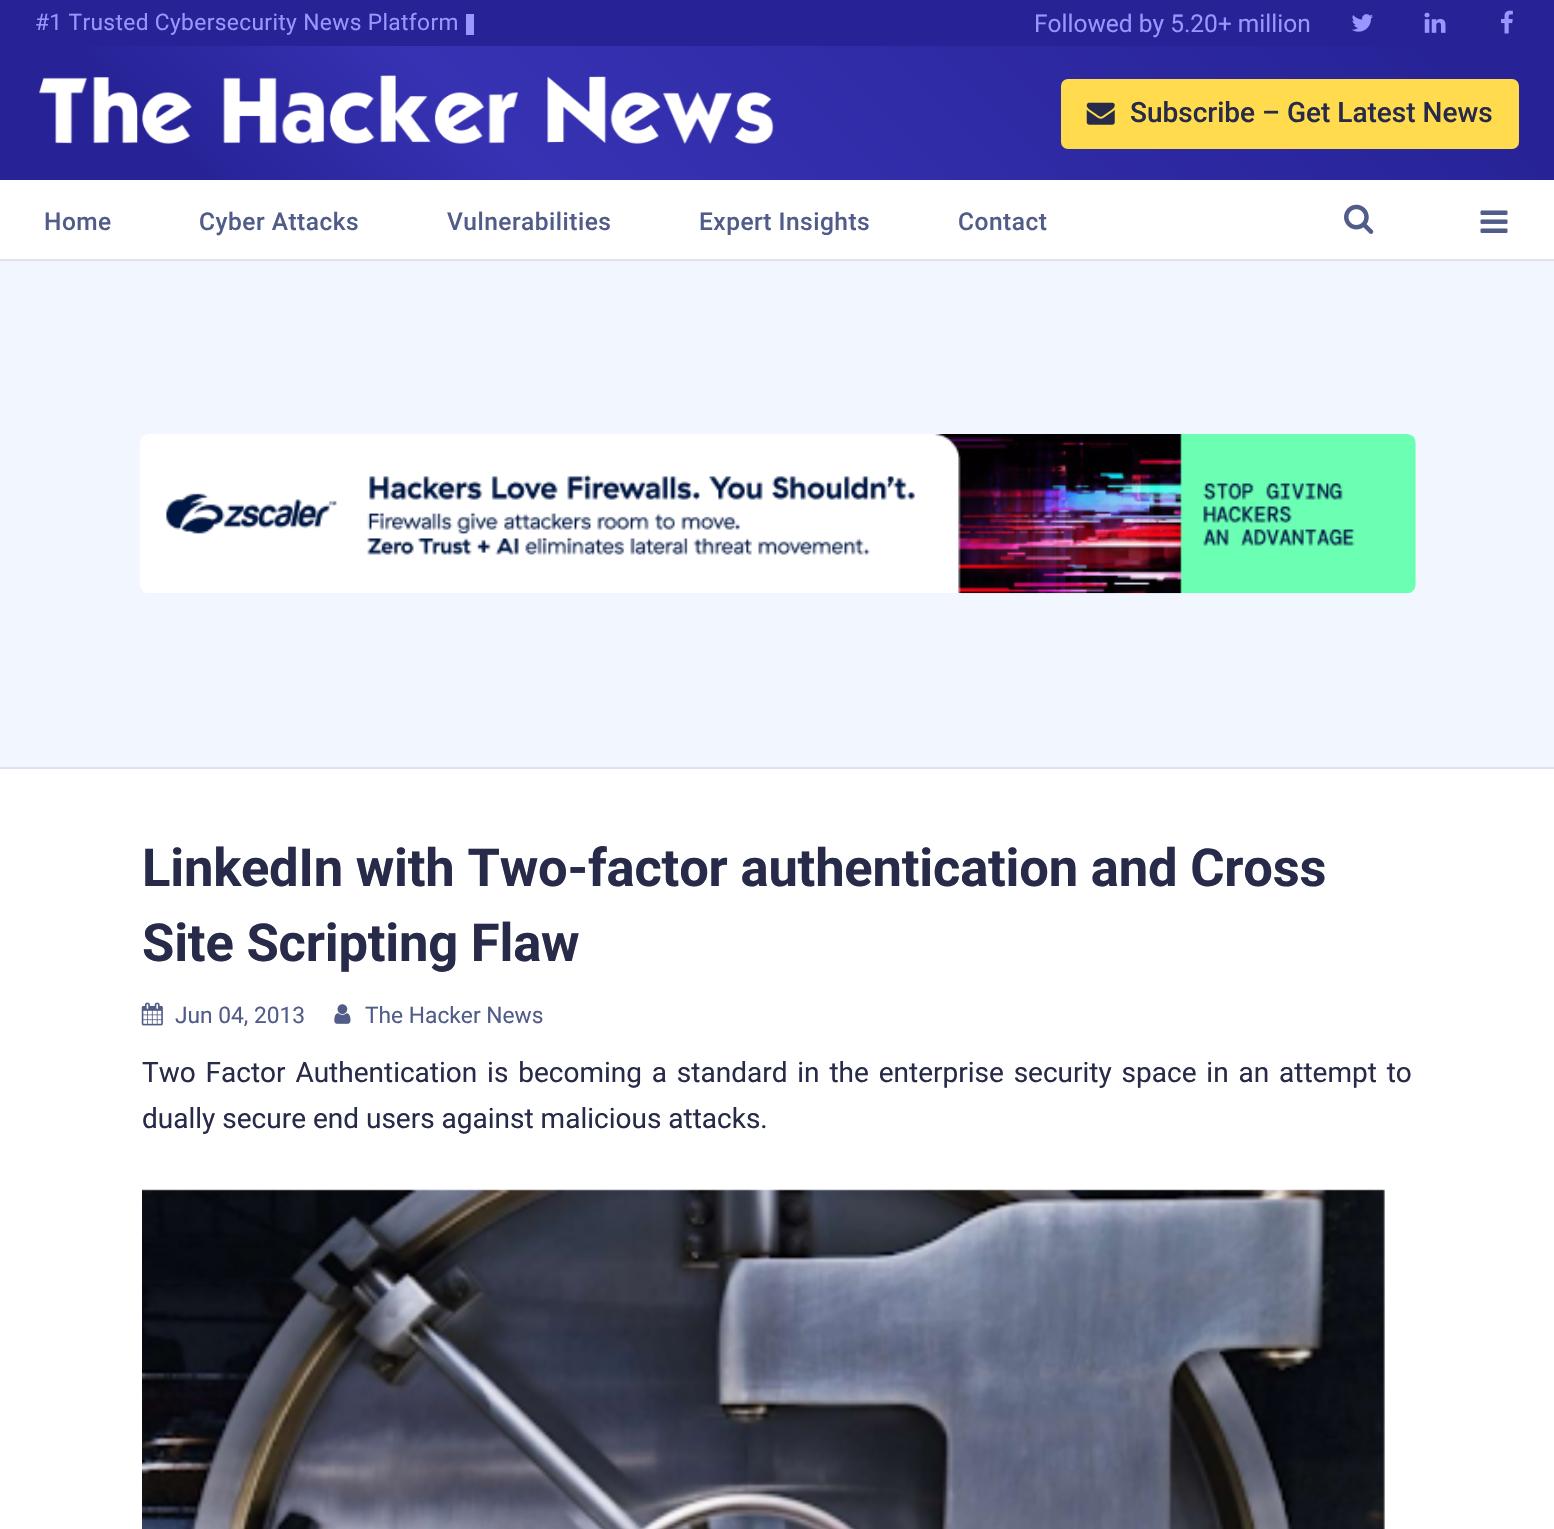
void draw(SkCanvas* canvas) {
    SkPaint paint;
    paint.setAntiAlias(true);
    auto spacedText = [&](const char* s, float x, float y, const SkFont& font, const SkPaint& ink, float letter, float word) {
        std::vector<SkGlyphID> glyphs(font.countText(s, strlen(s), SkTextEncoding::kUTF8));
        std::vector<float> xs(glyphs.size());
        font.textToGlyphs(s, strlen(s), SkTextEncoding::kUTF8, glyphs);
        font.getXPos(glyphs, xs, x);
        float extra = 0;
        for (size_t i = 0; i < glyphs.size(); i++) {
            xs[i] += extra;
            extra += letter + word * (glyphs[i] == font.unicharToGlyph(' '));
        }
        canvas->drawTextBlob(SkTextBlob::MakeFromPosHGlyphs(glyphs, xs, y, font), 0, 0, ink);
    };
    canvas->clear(0xFFF2F6FF);
    {
        const SkColor colors[] = {0xFF272397, 0xFF3732B3, 0xFF272397};
        const float stops[] = {0.12f, 0.31f, 0.9f};
        const SkPoint ends[] = {{343, 524}, {1211, -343}};
        paint.setShader(SkGradientShader::MakeLinear(ends, colors, stops, 3, SkTileMode::kClamp));
        paint.setAlpha(255);
    }
    canvas->drawRect(SkRect::MakeXYWH(0, 46, 1554, 134), paint);
    paint.setShader(nullptr);
    paint.setColor(0xFF272397);
    canvas->drawRect(SkRect::MakeXYWH(0, 0, 1554, 46), paint);
    SkFont font1(fontMgr->matchFamilyStyle("Roboto", SkFontStyle::Normal()), 22.75f);
    font1.setSubpixel(true);
    paint.setColor(0xFF9997FF);
    spacedText("#1 Trusted Cybersecurity News Platform", 35, 30, font1, paint, 0.35f, 0);
    canvas->drawRect(SkRect::MakeXYWH(466, 14, 8, 21), paint);
    SkFont font2(fontMgr->matchFamilyStyle("Roboto", SkFontStyle::Normal()), 24.5f);
    font2.setSubpixel(true);
    canvas->drawString("Followed by 5.20+ million", 1034, 32, font2, paint);
    canvas->drawImageRect(SkImages::DeferredFromEncodedData(SkData::MakeFromFileName("img1.png")), SkRect::MakeXYWH(1351, 14, 22, 18), SkSamplingOptions());
    canvas->drawImageRect(SkImages::DeferredFromEncodedData(SkData::MakeFromFileName("img2.png")), SkRect::MakeXYWH(1424, 12, 22, 21), SkSamplingOptions());
    canvas->drawImageRect(SkImages::DeferredFromEncodedData(SkData::MakeFromFileName("img3.png")), SkRect::MakeXYWH(1501, 10, 12, 24), SkSamplingOptions());
    canvas->drawImageRect(SkImages::DeferredFromEncodedData(SkData::MakeFromFileName("img4.png")), SkRect::MakeXYWH(39, 75, 735, 69), SkSamplingOptions());
    paint.setColor(0xFFFFDB4D);
    canvas->drawRoundRect(SkRect::MakeXYWH(1061, 79, 458, 70), 7, 7, paint);
    canvas->drawImageRect(SkImages::DeferredFromEncodedData(SkData::MakeFromFileName("img5.png")), SkRect::MakeXYWH(1086, 102, 29, 23), SkSamplingOptions());
    SkFont font3(fontMgr->matchFamilyStyle("Roboto", SkFontStyle(500, SkFontStyle::kNormal_Width, SkFontStyle::kUpright_Slant)), 28);
    font3.setSubpixel(true);
    paint.setColor(0xFF272A48);
    canvas->drawString("Subscribe – Get Latest News", 1130, 122, font3, paint);
    paint.setColor(0xFFFFFFFF);
    canvas->drawRect(SkRect::MakeXYWH(0, 180, 1554, 79), paint);
    paint.setColor(0xFFDCE2F1);
    canvas->drawRect(SkRect::MakeXYWH(0, 259, 1554, 2), paint);
    SkFont font4(fontMgr->matchFamilyStyle("Roboto", SkFontStyle(500, SkFontStyle::kNormal_Width, SkFontStyle::kUpright_Slant)), 24.5f);
    font4.setSubpixel(true);
    paint.setColor(0xFF515C89);
    spacedText("Home", 44, 230, font4, paint, 0.5f, 0);
    spacedText("Cyber Attacks", 199, 230, font4, paint, 0.5f, 0);
    spacedText("Vulnerabilities", 447, 230, font4, paint, 0.5f, 0);
    spacedText("Expert Insights", 699, 230, font4, paint, 0.5f, 0);
    spacedText("Contact", 958, 230, font4, paint, 0.5f, 0);
    canvas->drawImageRect(SkImages::DeferredFromEncodedData(SkData::MakeFromFileName("img6.png")), SkRect::MakeXYWH(1344, 204, 30, 30), SkSamplingOptions());
    canvas->drawImageRect(SkImages::DeferredFromEncodedData(SkData::MakeFromFileName("img7.png")), SkRect::MakeXYWH(1480, 210, 28, 23), SkSamplingOptions());
    paint.setColor(0xFFDCE2F1);
    canvas->drawRect(SkRect::MakeXYWH(0, 767, 1554, 2), paint);
    canvas->drawImageRect(SkImages::DeferredFromEncodedData(SkData::MakeFromFileName("img8.png")), SkRect::MakeXYWH(140, 434, 1276, 160), SkSamplingOptions());
    paint.setColor(0xFFFFFFFF);
    canvas->drawRect(SkRect::MakeXYWH(0, 769, 1554, 760), paint);
    SkFont font5(fontMgr->matchFamilyStyle("Roboto", SkFontStyle::Bold()), 52.5f);
    font5.setSubpixel(true);
    paint.setColor(0xFF272A48);
    spacedText("LinkedIn with Two-factor authentication and Cross", 142, 886, font5, paint, -0.2f, 0);
    spacedText("Site Scripting Flaw", 142, 961, font5, paint, -0.2f, 0);
    canvas->drawImageRect(SkImages::DeferredFromEncodedData(SkData::MakeFromFileName("img9.png")), SkRect::MakeXYWH(141, 1002, 22, 24), SkSamplingOptions());
    paint.setColor(0xFF515C89);
    canvas->drawString("Jun 04, 2013", 175, 1023, font1, paint);
    canvas->drawImageRect(SkImages::DeferredFromEncodedData(SkData::MakeFromFileName("img10.png")), SkRect::MakeXYWH(334, 1004, 17, 20), SkSamplingOptions());
    canvas->drawString("The Hacker News", 365, 1023, font1, paint);
    SkFont font6(fontMgr->matchFamilyStyle("Roboto", SkFontStyle::Normal()), 28);
    font6.setSubpixel(true);
    paint.setColor(0xFF272A48);
    spacedText("Two Factor Authentication is becoming a standard in the enterprise security space in an attempt to", 142, 1082, font6, paint, 0, 2.9f);
    canvas->drawString("dually secure end users against malicious attacks.", 142, 1128, font6, paint);
    canvas->drawImageRect(SkImages::DeferredFromEncodedData(SkData::MakeFromFileName("img11.png")), SkRect::MakeXYWH(142, 1189, 1243, 340), SkSamplingOptions());
}
